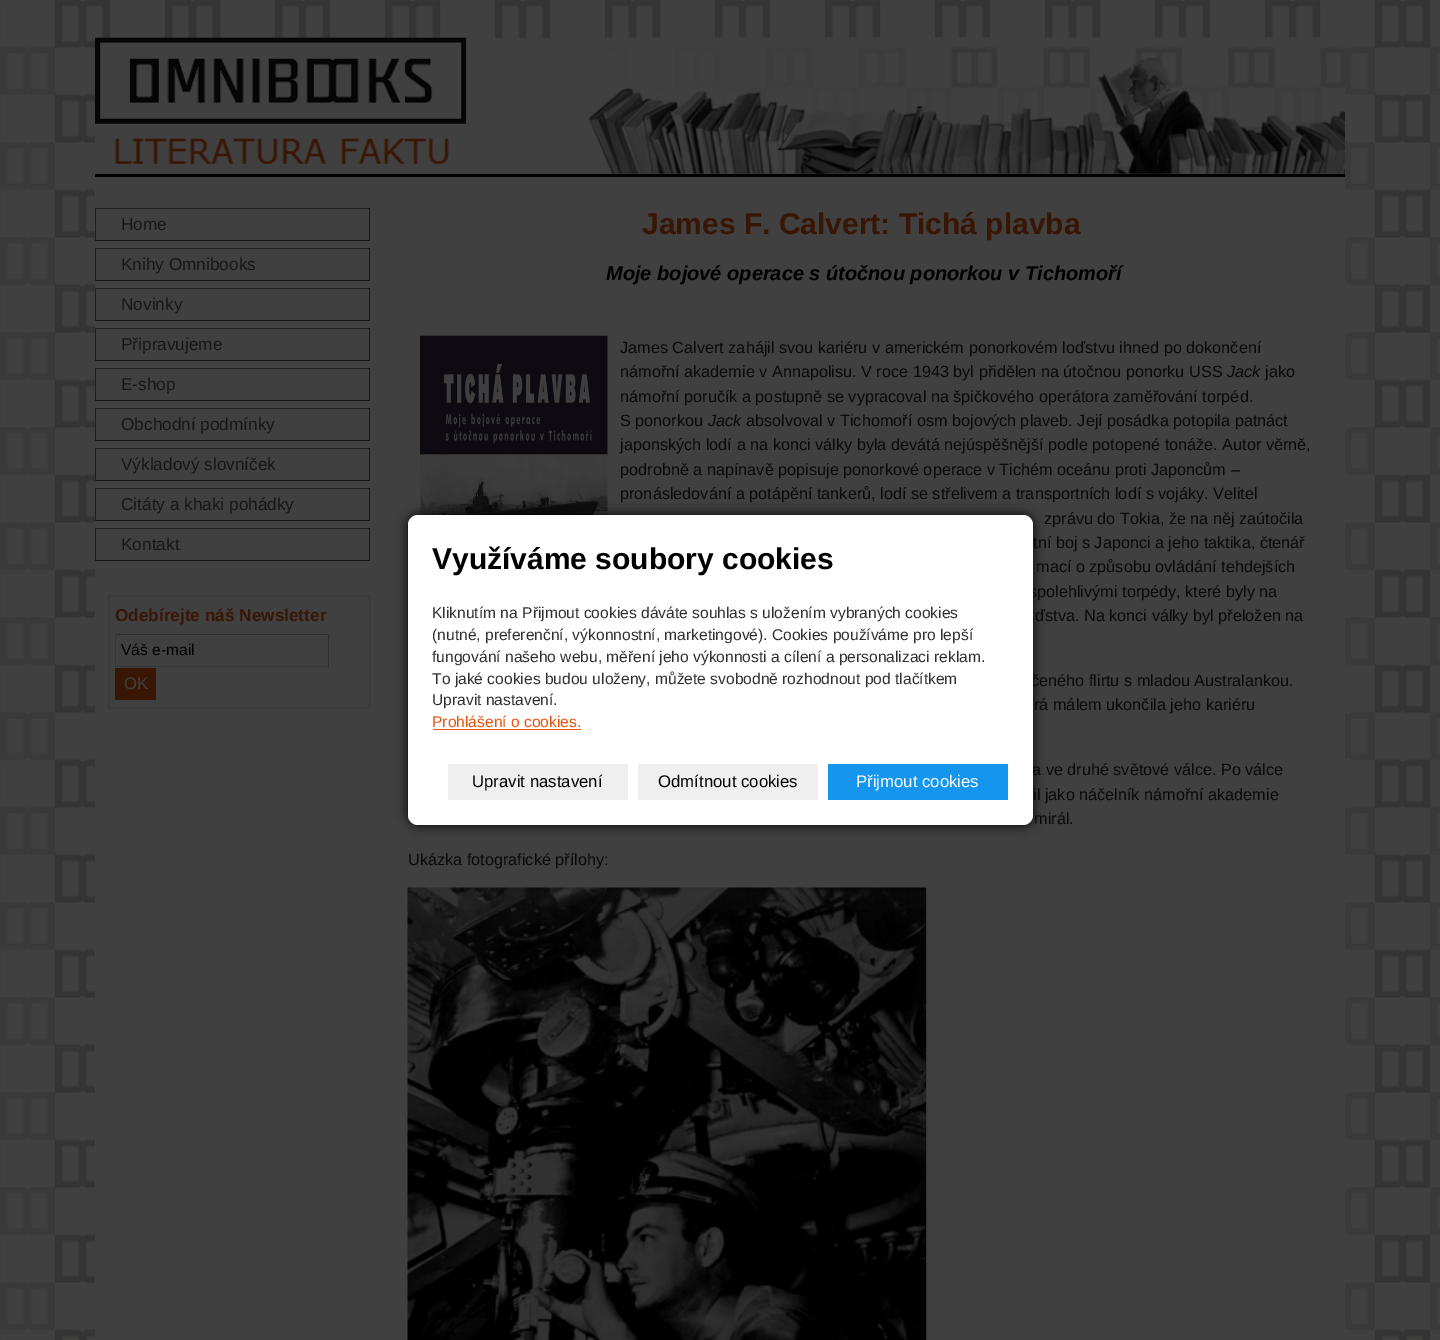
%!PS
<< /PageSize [1440 1340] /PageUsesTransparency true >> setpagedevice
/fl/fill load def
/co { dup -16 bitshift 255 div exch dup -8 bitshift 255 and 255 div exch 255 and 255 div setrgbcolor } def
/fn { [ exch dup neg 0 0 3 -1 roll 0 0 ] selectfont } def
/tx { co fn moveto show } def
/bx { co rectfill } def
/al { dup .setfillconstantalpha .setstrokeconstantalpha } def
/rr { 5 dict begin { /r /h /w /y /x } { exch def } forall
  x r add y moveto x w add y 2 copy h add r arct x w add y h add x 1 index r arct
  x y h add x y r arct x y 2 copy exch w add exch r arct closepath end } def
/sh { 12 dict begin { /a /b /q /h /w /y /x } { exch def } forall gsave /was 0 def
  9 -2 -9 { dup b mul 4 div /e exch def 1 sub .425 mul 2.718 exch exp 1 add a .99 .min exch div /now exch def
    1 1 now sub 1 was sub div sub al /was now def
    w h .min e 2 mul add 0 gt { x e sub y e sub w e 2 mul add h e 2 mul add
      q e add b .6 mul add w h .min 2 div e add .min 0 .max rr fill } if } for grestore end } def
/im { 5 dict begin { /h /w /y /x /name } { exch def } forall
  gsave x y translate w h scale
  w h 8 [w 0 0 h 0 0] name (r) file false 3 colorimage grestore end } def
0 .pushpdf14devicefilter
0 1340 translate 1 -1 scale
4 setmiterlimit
0 0 1440 1340 16#FFFFFF bx
(media/1.raw) 0 0 1440 1340 im
95 38 1250 1302 16#404040 bx
(media/2.raw) 588 37 757 137 im
95 174 1250 3 16#000000 bx
(media/3.raw) 95 37 372 127 im
95 208 275 1 16#1F1F1F bx
369 208 1 33 16#151515 bx
95 240 275 1 16#151515 bx
95 208 1 33 16#1F1F1F bx
95 248 275 1 16#1F1F1F bx
369 248 1 33 16#151515 bx
95 280 275 1 16#151515 bx
95 248 1 33 16#1F1F1F bx
95 288 275 1 16#1F1F1F bx
369 288 1 33 16#151515 bx
95 320 275 1 16#151515 bx
95 288 1 33 16#1F1F1F bx
95 328 275 1 16#1F1F1F bx
369 328 1 33 16#151515 bx
95 360 275 1 16#151515 bx
95 328 1 33 16#1F1F1F bx
95 368 275 1 16#1F1F1F bx
369 368 1 33 16#151515 bx
95 400 275 1 16#151515 bx
95 368 1 33 16#1F1F1F bx
95 408 275 1 16#1F1F1F bx
369 408 1 33 16#151515 bx
95 440 275 1 16#151515 bx
95 408 1 33 16#1F1F1F bx
95 448 275 1 16#1F1F1F bx
369 448 1 33 16#151515 bx
95 480 275 1 16#151515 bx
95 448 1 33 16#1F1F1F bx
95 488 275 1 16#1F1F1F bx
369 488 1 33 16#151515 bx
95 520 275 1 16#151515 bx
95 488 1 33 16#1F1F1F bx
95 528 275 1 16#1F1F1F bx
369 528 1 33 16#151515 bx
95 560 275 1 16#151515 bx
95 528 1 33 16#1F1F1F bx
16#393939 co
108.5 595.5 261 112 rectstroke
115 634 214 1 16#2F2F2F bx
328 634 1 34 16#2F2F2F bx
115 666 214 1 16#373737 bx
115 634 1 34 16#373737 bx
115 668 41 32 16#391503 bx
(media/4.raw) 420 335 188 180 im
(media/5.raw) 407 887 520 453 im
16#000000 co
408 515 625 310 10 6 1 sh
(Home) 121 230 /LiberationSans-Regular 17.2 16#161616 tx
(Knihy Omnibooks) 121 270 /LiberationSans-Regular 17.2 16#161616 tx
(Novinky) 121 310 /LiberationSans-Regular 17.2 16#161616 tx
(Připravujeme) 121 350 /LiberationSans-Regular 17.2 16#161616 tx
(E-shop) 121 390 /LiberationSans-Regular 17.2 16#161616 tx
(Obchodní podmínky) 121 430 /LiberationSans-Regular 17.2 16#161616 tx
(Výkladový slovníček) 121 470 /LiberationSans-Regular 17.2 16#161616 tx
(Citáty a khaki pohádky) 121 510 /LiberationSans-Regular 17.2 16#161616 tx
(Kontakt) 121 550 /LiberationSans-Regular 17.2 16#161616 tx
(Odebírejte náš Newsletter) 115 621 /LiberationSans-Bold 17.2 16#391503 tx
(Váš e-mail) 121 655 /LiberationSans-Regular 15.6 16#000000 tx
(OK) 124 689 /LiberationSans-Regular 16.75 16#404040 tx
(James F. Calvert: Tichá plavba) 642 234 /LiberationSans-Bold 30 16#391503 tx
(Moje bojové operace s útočnou ponorkou v Tichomoří) 606 280 /LiberationSans-BoldItalic 20 16#000000 tx
(James Calvert zahájil svou kariéru v americkém ponorkovém loďstvu ihned po dokončení) 620 353 /LiberationSans-Regular 16.25 16#090909 tx
(námořní akademie v Annapolisu. V roce 1943 byl přidělen na útočnou ponorku USS) 620 377 /LiberationSans-Regular 16.25 16#090909 tx
(Jack) 1227 377 /LiberationSans-Italic 16.25 16#090909 tx
(jako) 1265 377 /LiberationSans-Regular 16.25 16#090909 tx
(námořní poručík a postupně se vypracoval na špičkového operátora zaměřování torpéd.) 620 402 /LiberationSans-Regular 16.25 16#090909 tx
(S ponorkou) 620 426 /LiberationSans-Regular 16.25 16#090909 tx
(Jack) 708 426 /LiberationSans-Italic 16.25 16#090909 tx
(absolvoval v Tichomoří osm bojových plaveb. Její posádka potopila patnáct) 746 426 /LiberationSans-Regular 16.25 16#090909 tx
(japonských lodí a na konci války byla devátá nejúspěšnější podle potopené tonáže. Autor věrně,) 620 450 /LiberationSans-Regular 16.25 16#090909 tx
(podrobně a napínavě popisuje ponorkové operace v Tichém oceánu proti Japoncům –) 620 475 /LiberationSans-Regular 16.25 16#090909 tx
(pronásledování a potápění tankerů, lodí se střelivem a transportních lodí s vojáky. Velitel) 620 499 /LiberationSans-Regular 16.25 16#090909 tx
(zprávu do Tokia, že na něj zaútočila) 1044 524 /LiberationSans-Regular 16.25 16#090909 tx
(tní boj s Japonci a jeho taktika, čtenář) 1033 548 /LiberationSans-Regular 16.25 16#090909 tx
(mací o způsobu ovládání tehdejších) 1036 572 /LiberationSans-Regular 16.25 16#090909 tx
(spolehlivými torpédy, které byly na) 1029 597 /LiberationSans-Regular 16.25 16#090909 tx
(ďstva. Na konci války byl přeložen na) 1035 621 /LiberationSans-Regular 16.25 16#090909 tx
(čeného flirtu s mladou Australankou.) 1031 686 /LiberationSans-Regular 16.25 16#090909 tx
(rá málem ukončila jeho kariéru) 1034 710 /LiberationSans-Regular 16.25 16#090909 tx
(a ve druhé světové válce. Po válce) 1032 775 /LiberationSans-Regular 16.25 16#090909 tx
(il jako náčelník námořní akademie) 1033 800 /LiberationSans-Regular 16.25 16#090909 tx
(mirál.) 1034 824 /LiberationSans-Regular 16.25 16#090909 tx
(Ukázka fotografické přílohy:) 408 865 /LiberationSans-Regular 16.25 16#090909 tx
16#FFFFFF co
408 515 625 310 10 rr fl
(Využíváme soubory cookies) 432 569 /LiberationSans-Bold 30 16#000000 tx
(Kliknutím na Přijmout cookies dáváte souhlas s uložením vybraných cookies) 432 618 /LiberationSans-Regular 15.6 16#303030 tx
(\(nutné, preferenční, výkonnostní, marketingové\). Cookies používáme pro lepší) 432 640 /LiberationSans-Regular 15.6 16#303030 tx
(fungování našeho webu, měření jeho výkonnosti a cílení a personalizaci reklam.) 432 662 /LiberationSans-Regular 15.6 16#303030 tx
(To jaké cookies budou uloženy, můžete svobodně rozhodnout pod tlačítkem) 432 684 /LiberationSans-Regular 15.6 16#303030 tx
(Upravit nastavení.) 432 705 /LiberationSans-Regular 15.6 16#303030 tx
(Prohlášení o cookies.) 432 727 /LiberationSans-Regular 15.6 16#E5550D tx
433 729 148 1 16#E5550D bx
448 764 180 36 16#EFEFEF bx
(Upravit nastavení) 472 787 /LiberationSans-Regular 16.75 16#000000 tx
638 764 180 36 16#EFEFEF bx
(Odmítnout cookies) 658 787 /LiberationSans-Regular 16.75 16#000000 tx
828 764 180 36 16#1496EE bx
(Přijmout cookies) 856 787 /LiberationSans-Regular 16.75 16#FFFFFF tx
.poppdf14devicefilter showpage
